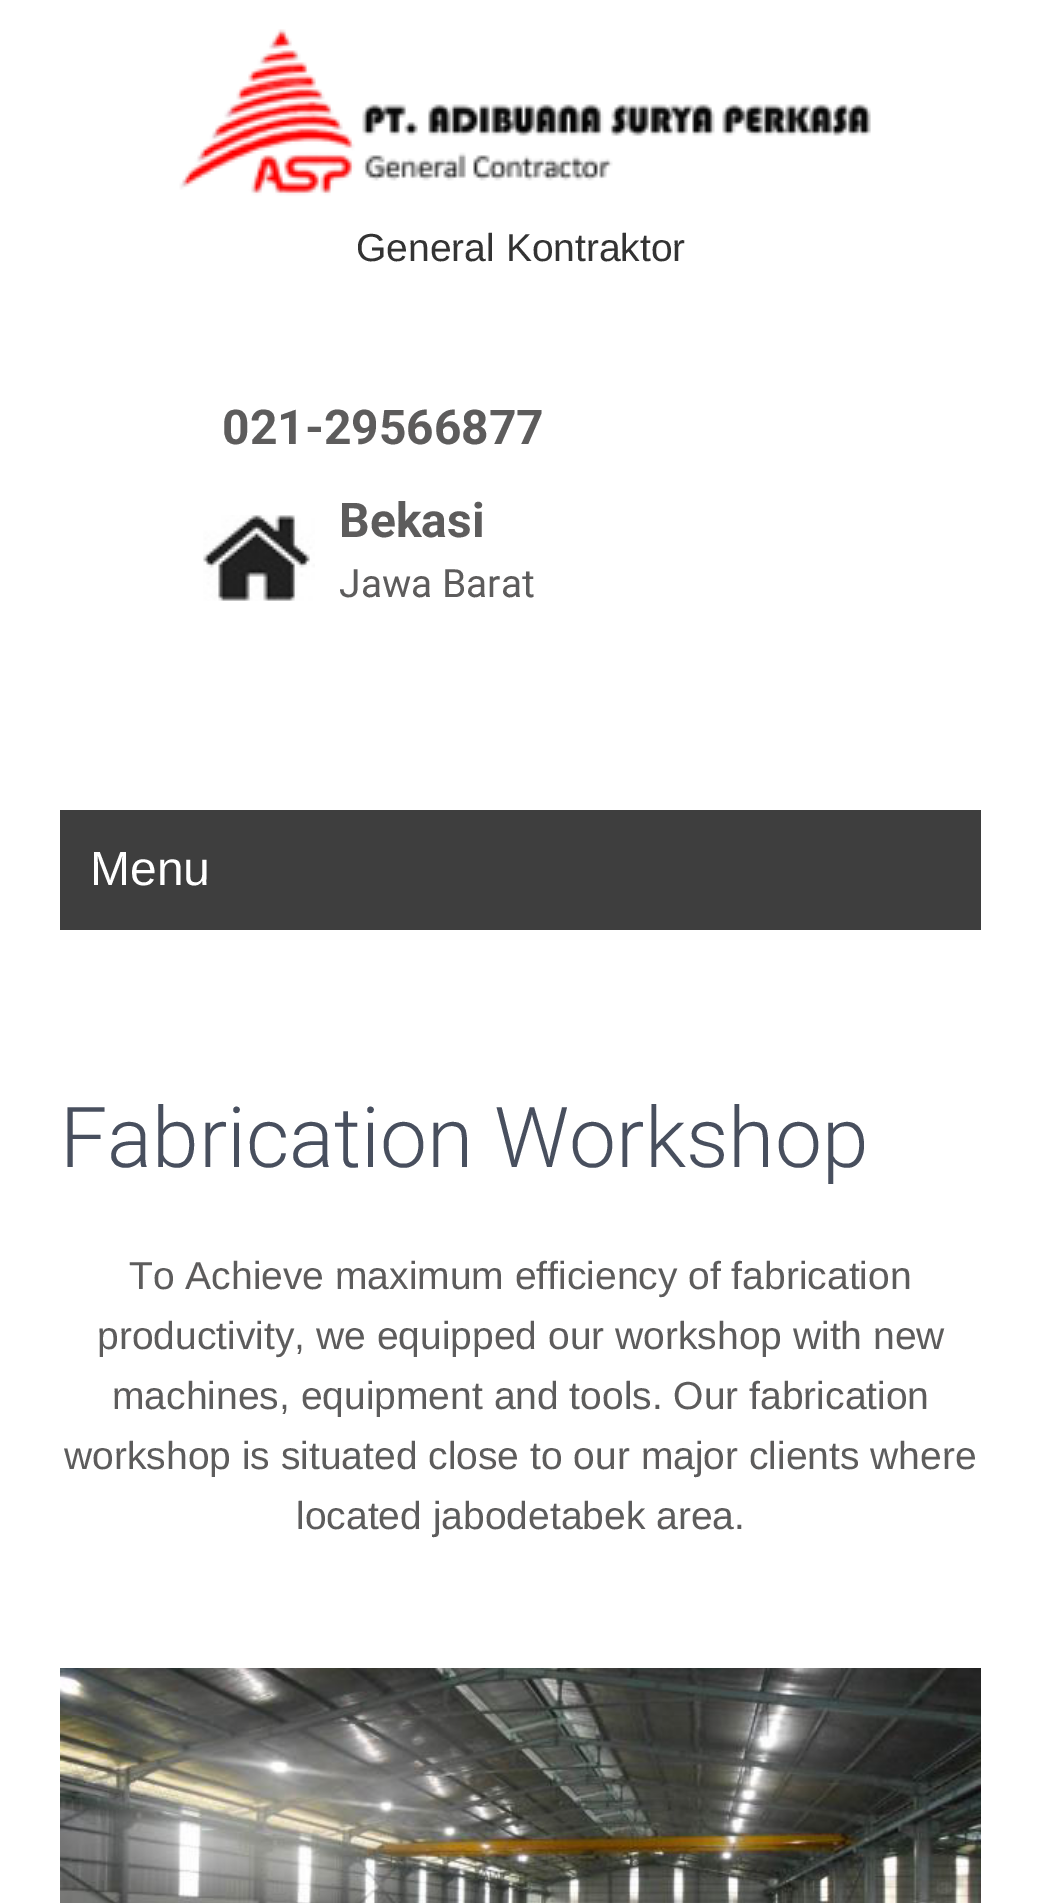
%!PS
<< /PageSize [1039 1903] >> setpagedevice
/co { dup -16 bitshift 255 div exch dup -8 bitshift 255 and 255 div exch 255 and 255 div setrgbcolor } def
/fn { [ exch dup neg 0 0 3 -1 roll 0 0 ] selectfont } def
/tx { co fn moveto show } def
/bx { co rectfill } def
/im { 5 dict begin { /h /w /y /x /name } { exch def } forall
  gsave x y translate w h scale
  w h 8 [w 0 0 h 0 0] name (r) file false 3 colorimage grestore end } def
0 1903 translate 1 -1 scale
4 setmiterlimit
0 0 1039 1903 16#FFFFFF bx
(media/1.raw) 179 29 692 167 im
(media/2.raw) 203 515 112 86 im
60 810 921 120 16#3E3E3E bx
(media/3.raw) 60 1668 921 235 im
(General Kontraktor) 356 261 /Arimo-Regular 39 16#333333 tx
(021-29566877) 222 444 /Roboto-Bold 48 16#5D5C5C tx
(Bekasi) 339 537 /Roboto-Bold 48 16#5D5C5C tx
(Jawa Barat) 339 597 /Roboto-Regular 39 16#5D5C5C tx
(Menu) 90 885 /Arimo-Regular 48 16#FFFFFF tx
(Fabrication Workshop) 60 1167 /Roboto-Light 84 16#484F5E tx
(To Achieve maximum efficiency of fabrication) 129 1289 /Arimo-Regular 39 16#5D5C5C tx
(productivity, we equipped our workshop with new) 97 1349 /Arimo-Regular 39 16#5D5C5C tx
(machines, equipment and tools. Our fabrication) 112 1409 /Arimo-Regular 39 16#5D5C5C tx
(workshop is situated close to our major clients where) 64 1469 /Arimo-Regular 39 16#5D5C5C tx
(located jabodetabek area.) 296 1529 /Arimo-Regular 39 16#5D5C5C tx
showpage
